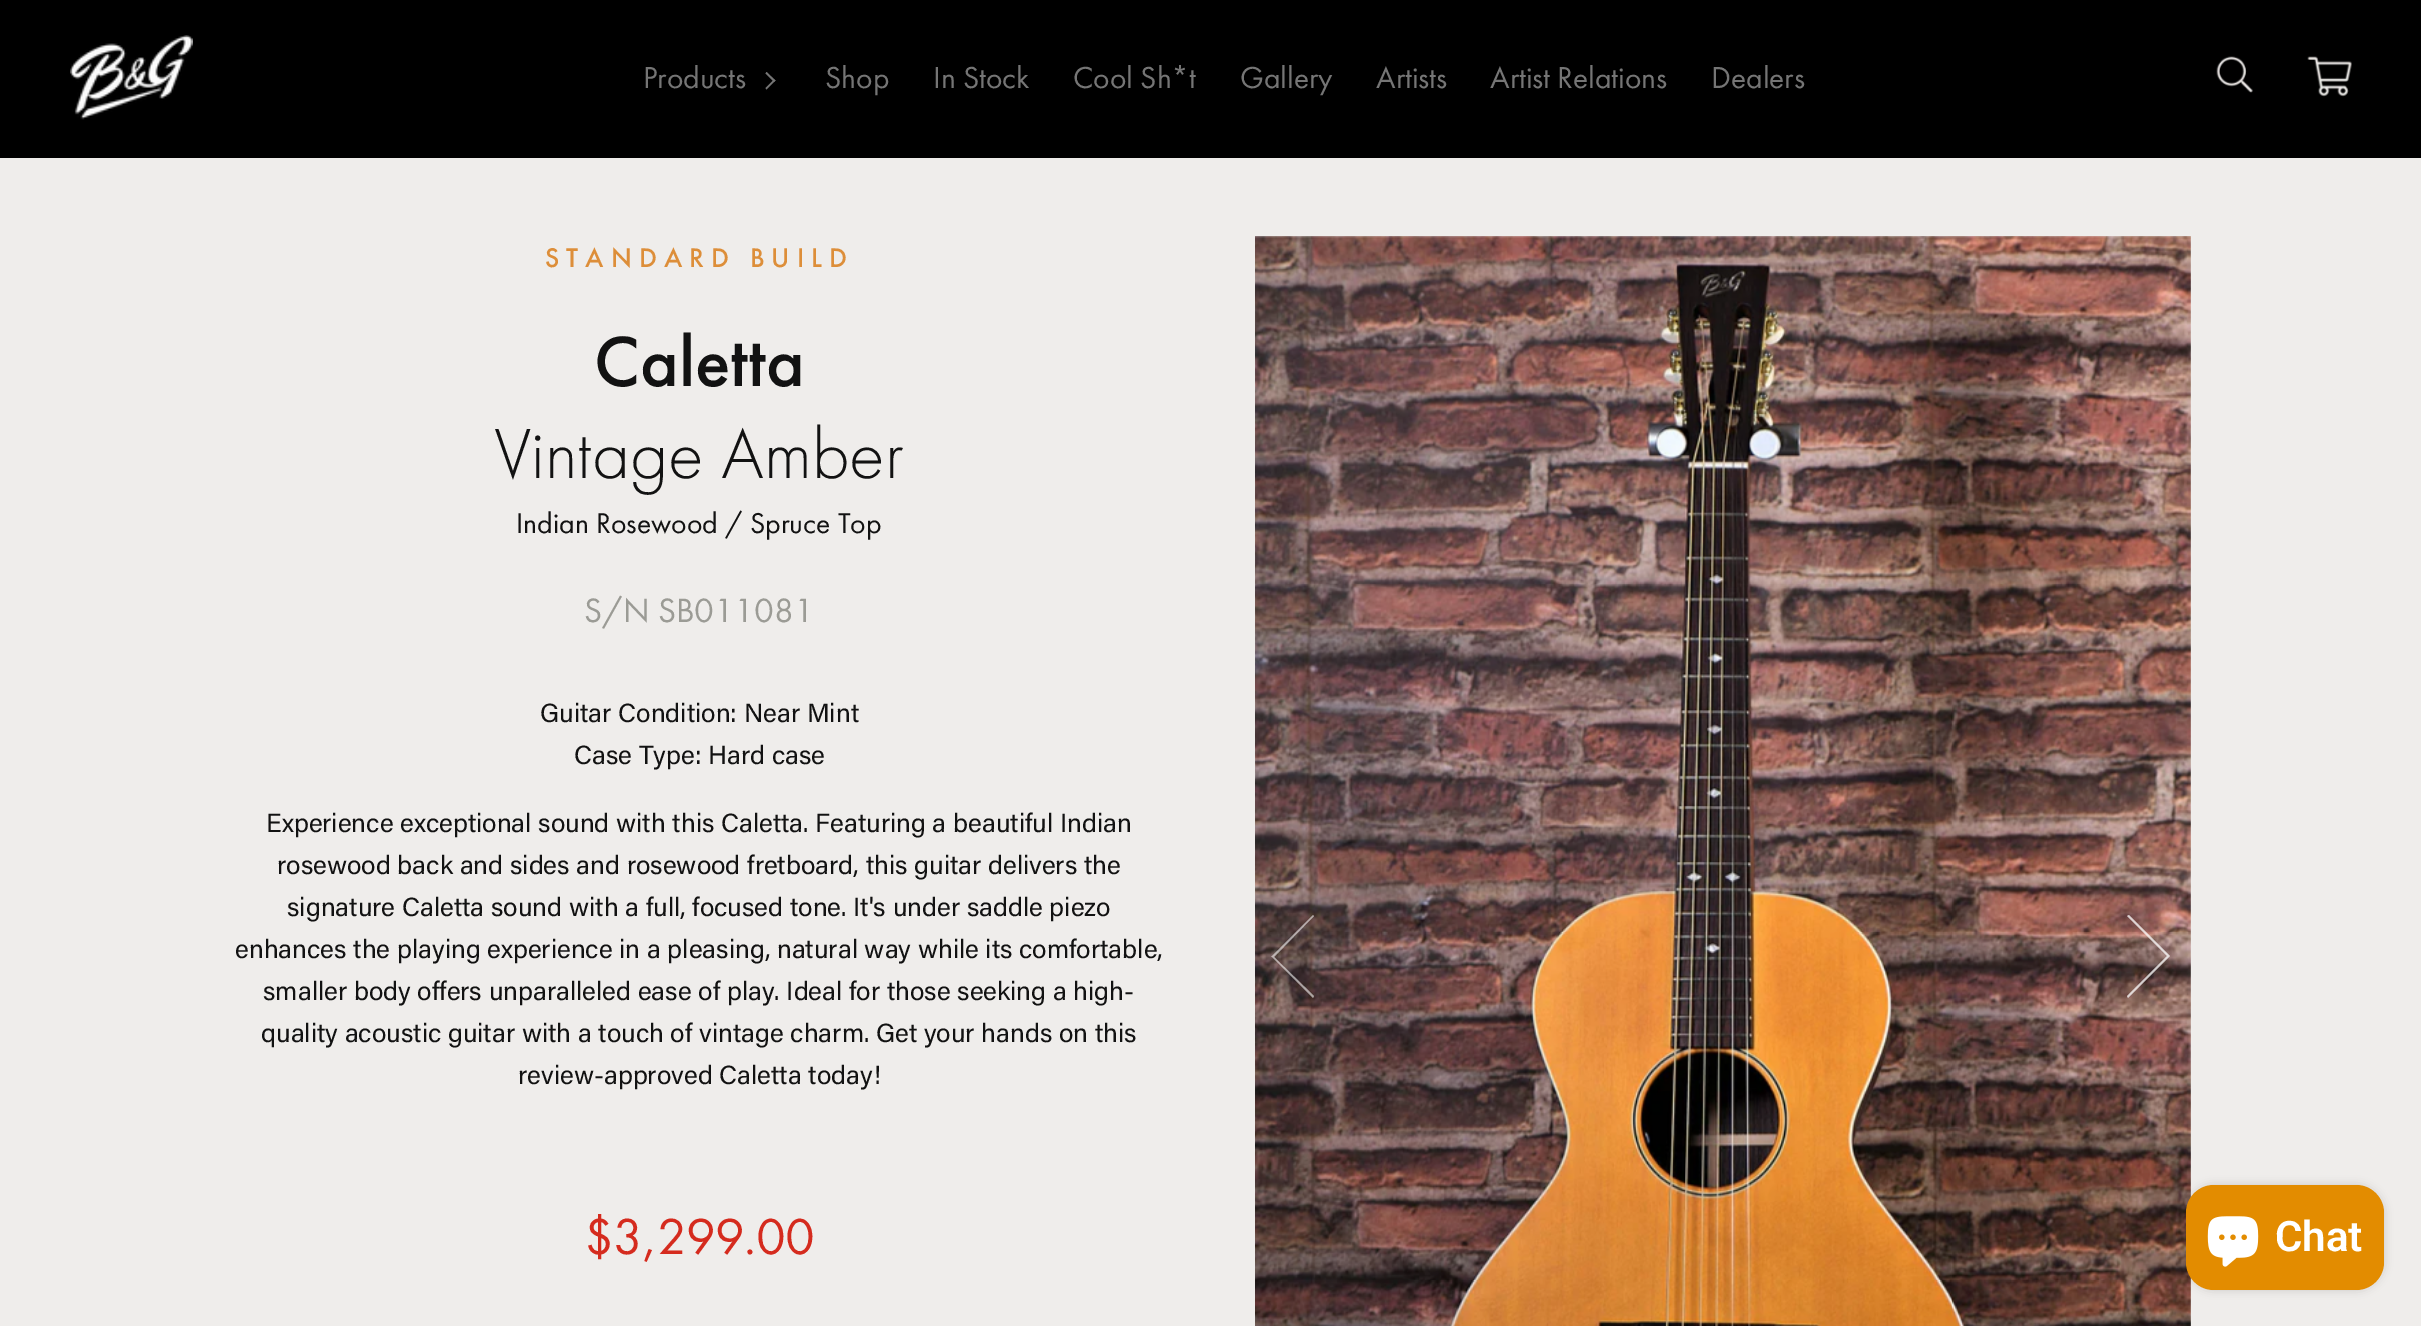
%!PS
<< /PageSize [2421 1326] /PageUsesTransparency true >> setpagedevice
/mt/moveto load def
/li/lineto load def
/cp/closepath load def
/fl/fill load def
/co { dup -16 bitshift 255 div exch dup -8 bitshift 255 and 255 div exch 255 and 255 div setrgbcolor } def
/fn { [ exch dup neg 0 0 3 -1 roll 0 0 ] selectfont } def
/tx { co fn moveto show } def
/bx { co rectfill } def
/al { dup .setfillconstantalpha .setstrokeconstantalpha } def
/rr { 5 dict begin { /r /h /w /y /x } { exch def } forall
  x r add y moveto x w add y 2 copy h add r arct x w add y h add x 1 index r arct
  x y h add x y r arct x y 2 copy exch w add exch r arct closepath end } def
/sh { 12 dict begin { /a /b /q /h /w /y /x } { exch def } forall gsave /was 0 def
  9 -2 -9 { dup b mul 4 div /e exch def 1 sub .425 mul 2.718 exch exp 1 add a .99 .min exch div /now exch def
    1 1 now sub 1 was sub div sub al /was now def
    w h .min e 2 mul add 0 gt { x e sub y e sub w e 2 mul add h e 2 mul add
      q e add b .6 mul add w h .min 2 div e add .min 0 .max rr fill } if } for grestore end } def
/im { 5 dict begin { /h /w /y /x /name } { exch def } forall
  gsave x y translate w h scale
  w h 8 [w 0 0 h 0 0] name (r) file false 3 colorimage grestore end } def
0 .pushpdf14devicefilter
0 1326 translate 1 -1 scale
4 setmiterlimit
0 0 2421 1326 16#000000 bx
(media/1.raw) 70 35 123 85 im
16#757575 co
766.5 72 mt 775.5 80.5 li 774 82 li 765.5 73.5 li cp fl
774 79.5 mt 775.5 80.5 li 766.5 89.5 li 765.5 88 li cp fl
(media/2.raw) 2216 56 37 37 im
(media/3.raw) 2307 56 45 41 im
0 158 2421 1168 16#EFEDEB bx
(media/4.raw) 1255 236 936 1090 im
0.56 al
16#FFFFFF co
1272 957 mt 1313 998 li 1314 996 li 1274 957 li 1314 916 li 1313 915 li 1271 957 li cp fl
0.75 al
2169 955 mt 2129 915 li 2127 916 li 2167 956 li 2127 996 li 2128 998 li 2170 956 li cp fl
1 al
16#000000 co
2186 1185 198 105 28 4.5 .15 sh
16#E38C00 co
2186 1185 198 105 28 rr fl
(media/5.raw) 2207 1216 52 51 im
(Products) 643 88 /FuturaPT-Regular 31.5 16#757575 tx
(Shop) 825 88 /FuturaPT-Regular 31.5 16#757575 tx
(In Stock) 933 88 /FuturaPT-Regular 31.5 16#757575 tx
(Cool Sh*t) 1073 88 /FuturaPT-Regular 31.5 16#757575 tx
(Gallery) 1240 88 /FuturaPT-Regular 31.5 16#757575 tx
(Artists) 1376 88 /FuturaPT-Regular 31.5 16#757575 tx
(Artist Relations) 1490 88 /FuturaPT-Regular 31.5 16#757575 tx
(Dealers) 1711 88 /FuturaPT-Regular 31.5 16#757575 tx
/FuturaPT-Medium 28 fn
16#DD8E39 co
545 267 mt 7 0 (STANDARD BUILD) ashow
(Caletta) 594 386 /FuturaPT-Medium 73.5 16#121212 tx
(Vintage Amber) 494 478 /FuturaPT-Light 73.5 16#121212 tx
(Indian Rosewood / Spruce Top) 516 533 /FuturaPT-Regular 29.75 16#121212 tx
(S/N SB011081) 584 622 /FuturaPT-Regular 35 16#9B9B95 tx
(Guitar Condition: Near Mint) 540 722 /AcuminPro-Regular 26.25 16#121212 tx
(Case Type: Hard case) 574 764 /AcuminPro-Regular 26.25 16#121212 tx
(Experience exceptional sound with this Caletta. Featuring a beautiful Indian) 266 832 /AcuminPro-Regular 26.25 16#121212 tx
(rosewood back and sides and rosewood fretboard, this guitar delivers the) 277 874 /AcuminPro-Regular 26.25 16#121212 tx
(signature Caletta sound with a full, focused tone. It's under saddle piezo) 287 916 /AcuminPro-Regular 26.25 16#121212 tx
(enhances the playing experience in a pleasing, natural way while its comfortable,) 235 958 /AcuminPro-Regular 26.25 16#121212 tx
(smaller body offers unparalleled ease of play. Ideal for those seeking a high-) 263 1000 /AcuminPro-Regular 26.25 16#121212 tx
(quality acoustic guitar with a touch of vintage charm. Get your hands on this) 261 1042 /AcuminPro-Regular 26.25 16#121212 tx
(review-approved Caletta today!) 518 1084 /AcuminPro-Regular 26.25 16#121212 tx
/FuturaPT-Regular 52.5 fn
16#D52B1E co
584 1254 mt -.5 0 ($3,299.00) ashow
(Chat) 2275 1251 /Roboto-SemiBold 42 16#FFFFFF tx
.poppdf14devicefilter showpage
